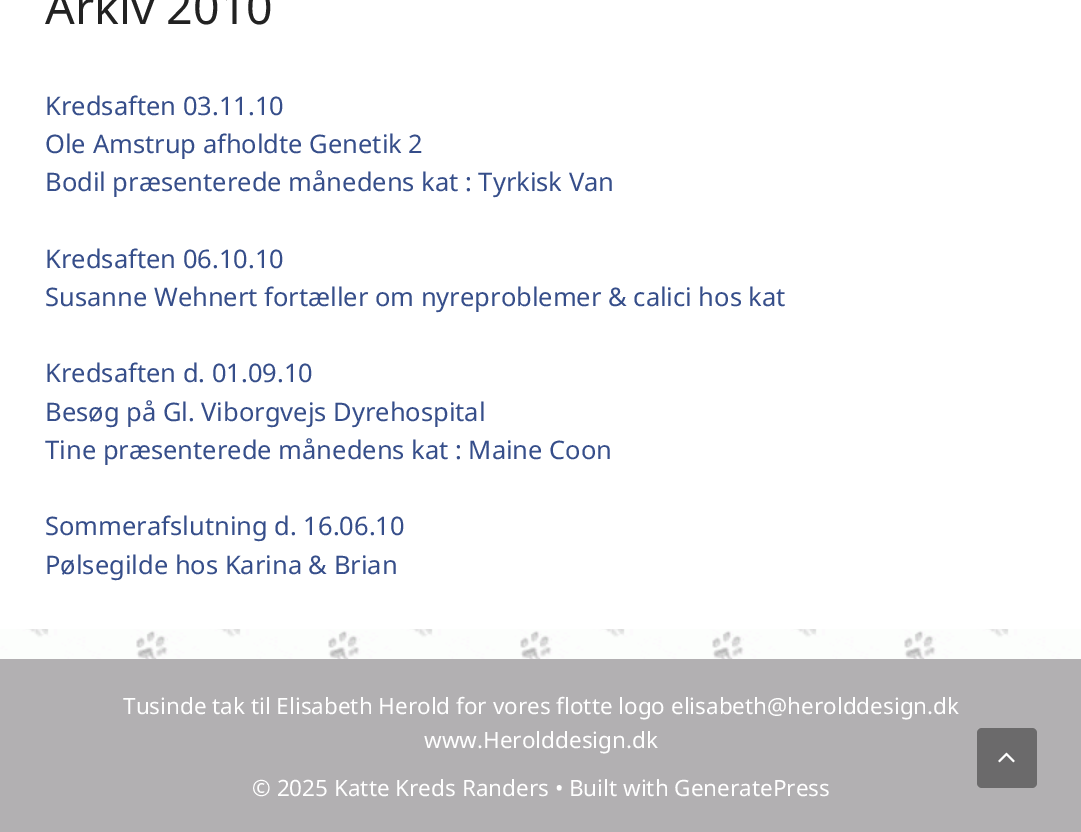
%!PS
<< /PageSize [1081 832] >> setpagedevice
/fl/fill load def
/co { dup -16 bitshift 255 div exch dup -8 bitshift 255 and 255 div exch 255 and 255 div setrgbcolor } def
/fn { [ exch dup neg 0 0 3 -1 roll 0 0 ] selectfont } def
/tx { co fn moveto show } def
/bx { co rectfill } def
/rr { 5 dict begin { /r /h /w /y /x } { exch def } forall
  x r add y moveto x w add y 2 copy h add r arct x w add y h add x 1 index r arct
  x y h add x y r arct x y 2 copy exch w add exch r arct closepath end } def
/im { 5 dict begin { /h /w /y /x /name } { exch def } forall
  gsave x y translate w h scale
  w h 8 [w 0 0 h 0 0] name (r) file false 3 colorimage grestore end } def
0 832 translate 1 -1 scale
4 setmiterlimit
0 0 1081 832 16#FFFFFF bx
(media/1.raw) 0 629 1081 30 im
0 659 1081 173 16#B2B0B2 bx
16#6B6A6B co
977 728 60 60 5 rr fl
(media/2.raw) 998 752 17 11 im
(Arkiv 2010) 45 24 /NotoSans-Regular 46.5 16#222222 tx
(Kredsaften 03.11.10) 45 115 /NotoSans-Regular 25.5 16#364E8A tx
(Ole Amstrup afholdte Genetik 2) 45 153 /NotoSans-Regular 25.5 16#364E8A tx
(Bodil præsenterede månedens kat : Tyrkisk Van) 45 191 /NotoSans-Regular 25.5 16#364E8A tx
(Kredsaften 06.10.10) 45 268 /NotoSans-Regular 25.5 16#364E8A tx
(Susanne Wehnert fortæller om nyreproblemer & calici hos kat) 45 306 /NotoSans-Regular 25.5 16#364E8A tx
(Kredsaften d. 01.09.10) 45 382 /NotoSans-Regular 25.5 16#364E8A tx
(Besøg på Gl. Viborgvejs Dyrehospital) 45 421 /NotoSans-Regular 25.5 16#364E8A tx
(Tine præsenterede månedens kat : Maine Coon) 45 459 /NotoSans-Regular 25.5 16#364E8A tx
(Sommerafslutning d. 16.06.10) 45 535 /NotoSans-Regular 25.5 16#364E8A tx
(Pølsegilde hos Karina & Brian) 45 574 /NotoSans-Regular 25.5 16#364E8A tx
(Tusinde tak til Elisabeth Herold for vores flotte logo elisabeth@herolddesign.dk) 123 714 /NotoSans-Regular 22.5 16#FFFFFF tx
(www.Herolddesign.dk) 424 748 /NotoSans-Regular 22.5 16#FFFFFF tx
(© 2025 Katte Kreds Randers • Built with GeneratePress) 252 796 /NotoSans-Regular 22.5 16#FFFFFF tx
showpage
